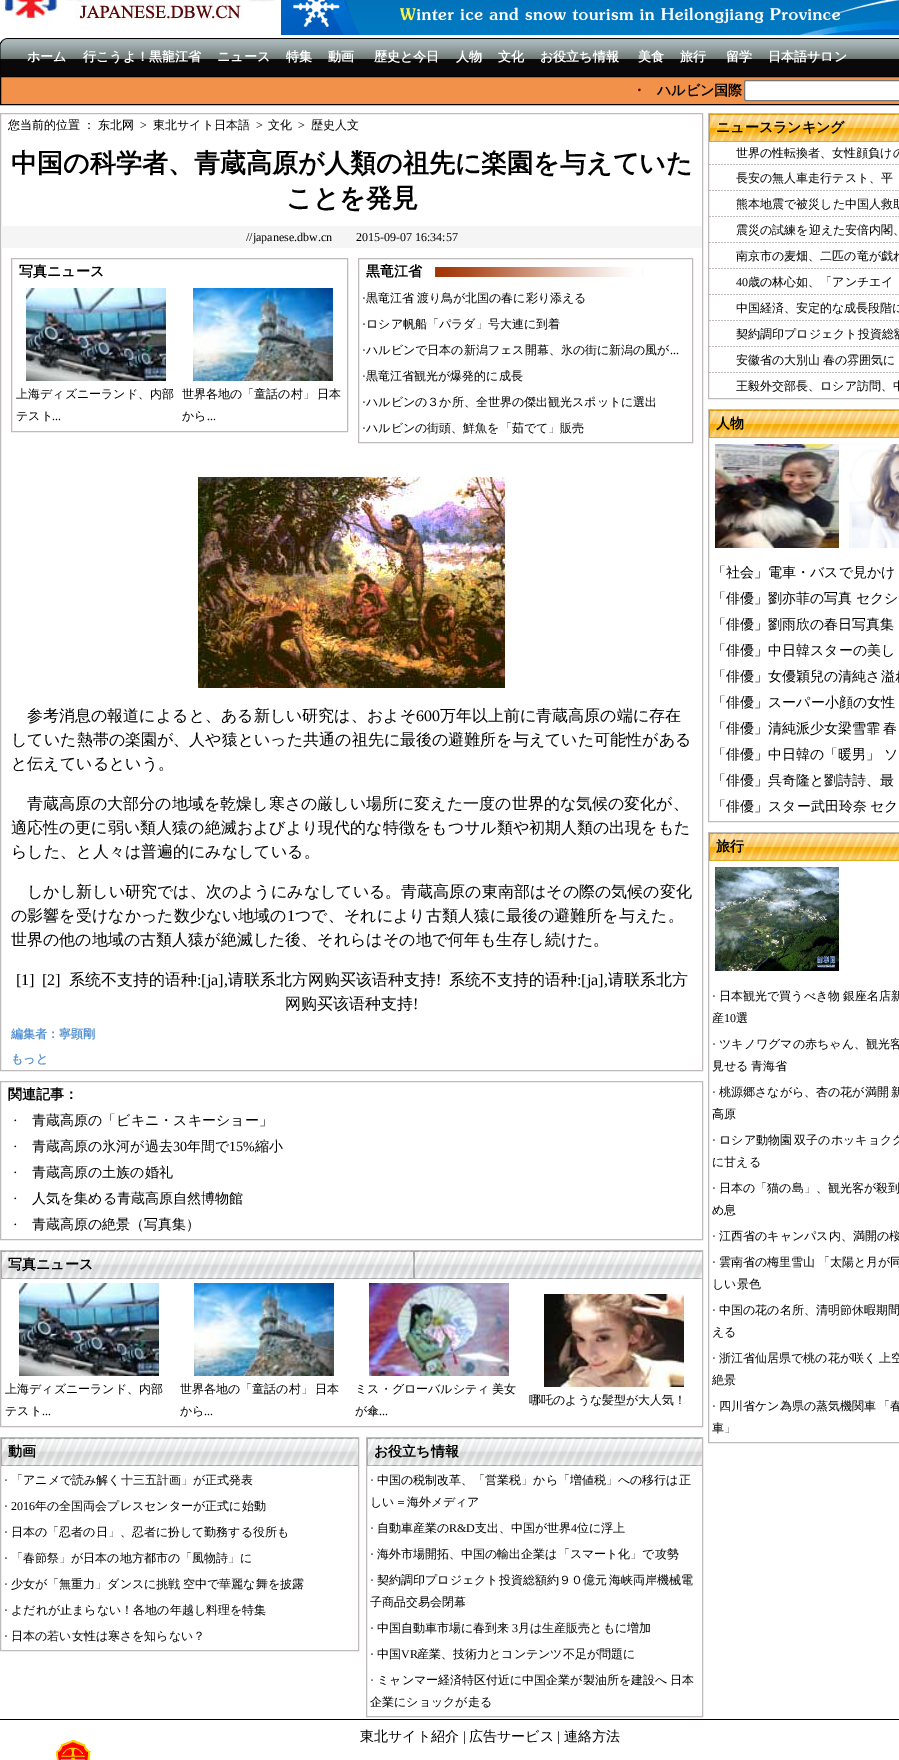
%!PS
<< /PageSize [899 1760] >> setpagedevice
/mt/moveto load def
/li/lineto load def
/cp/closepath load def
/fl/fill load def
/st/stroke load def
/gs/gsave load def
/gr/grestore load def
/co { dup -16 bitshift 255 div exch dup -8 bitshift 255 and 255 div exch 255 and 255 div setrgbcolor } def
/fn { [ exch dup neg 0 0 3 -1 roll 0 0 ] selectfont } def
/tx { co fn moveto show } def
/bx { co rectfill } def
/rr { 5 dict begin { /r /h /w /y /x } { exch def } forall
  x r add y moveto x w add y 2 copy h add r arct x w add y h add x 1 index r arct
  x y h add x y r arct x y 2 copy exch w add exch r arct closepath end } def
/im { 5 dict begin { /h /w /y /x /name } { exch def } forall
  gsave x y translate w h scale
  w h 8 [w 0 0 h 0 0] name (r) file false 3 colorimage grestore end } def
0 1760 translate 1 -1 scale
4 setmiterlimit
0 0 899 1760 16#FFFFFF bx
(media/1.raw) 3 0 272 20 im
(media/2.raw) 281 0 618 35 im
(media/3.raw) 0 38 7 38 im
(media/4.raw) 7 38 892 38 im
16#F29149 co
.5 76.5 mt 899.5 76.5 li 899.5 104.5 li .5 104.5 li cp gs fl gr
16#000000 co
st
16#FFFFFF co
744.5 80.5 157 20 1.5 rr gs fl gr
16#767676 co
st
16#C0BBBB co
.5 113.5 702 957 rectstroke
1 226 701 22 16#F5F5F5 bx
16#C0BBBB co
11.5 258.5 336 173 rectstroke
(media/5.raw) 26 288 140 93 im
(media/6.raw) 193 288 140 93 im
358.5 258.5 334 184 rectstroke
(media/7.raw) 435 267 208 10 im
(media/8.raw) 198 477 307 211 im
.5 1081.5 702 158 rectstroke
.5 1250.5 702 176 rectstroke
(media/9.raw) 1 1251 701 28 im
(media/10.raw) 19 1283 140 93 im
(media/11.raw) 194 1283 140 93 im
(media/12.raw) 369 1283 140 93 im
(media/13.raw) 544 1294 140 93 im
.5 1437.5 358 213 rectstroke
(media/14.raw) 1 1438 357 28 im
366.5 1437.5 336 279 rectstroke
(media/15.raw) 367 1438 335 28 im
708.5 113.5 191 285 rectstroke
(media/16.raw) 709 114 190 28 im
(media/17.raw) 709 164 190 1 im
(media/17.raw) 709 190 190 1 im
(media/17.raw) 709 216 190 1 im
(media/17.raw) 709 242 190 1 im
(media/17.raw) 709 268 190 1 im
(media/17.raw) 709 294 190 1 im
(media/17.raw) 709 320 190 1 im
(media/17.raw) 709 346 190 1 im
(media/17.raw) 709 372 190 1 im
708.5 409.5 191 412 rectstroke
(media/16.raw) 709 410 190 28 im
(media/18.raw) 715 444 124 104 im
(media/19.raw) 849 444 50 104 im
708.5 832.5 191 610 rectstroke
(media/16.raw) 709 833 190 28 im
(media/20.raw) 715 867 124 104 im
0 1719 899 1 16#000000 bx
(media/21.raw) 56 1740 35 20 im
(ホーム) 27 61 /WenQuanYiZenHei-Bold 13 16#FFFFFF tx
(行こうよ！黒龍江省) 83 61 /WenQuanYiZenHei-Bold 13 16#FFFFFF tx
(ニュース) 217 61 /WenQuanYiZenHei-Bold 13 16#FFFFFF tx
(特集) 286 61 /WenQuanYiZenHei-Bold 13 16#FFFFFF tx
(動画) 328 61 /WenQuanYiZenHei-Bold 13 16#FFFFFF tx
(歴史と今日) 374 61 /WenQuanYiZenHei-Bold 13 16#FFFFFF tx
(人物) 456 61 /WenQuanYiZenHei-Bold 13 16#FFFFFF tx
(文化) 498 61 /WenQuanYiZenHei-Bold 13 16#FFFFFF tx
(お役立ち情報) 540 61 /WenQuanYiZenHei-Bold 13 16#FFFFFF tx
(美食) 638 61 /WenQuanYiZenHei-Bold 13 16#FFFFFF tx
(旅行) 680 61 /WenQuanYiZenHei-Bold 13 16#FFFFFF tx
(留学) 726 61 /WenQuanYiZenHei-Bold 13 16#FFFFFF tx
(日本語サロン) 768 61 /WenQuanYiZenHei-Bold 13 16#FFFFFF tx
(・) 632 95 /WenQuanYiZenHei-Bold 14 16#600202 tx
(ハルビン国際) 657 95 /WenQuanYiZenHei-Bold 14 16#000000 tx
/WenQuanYiZenHei-Medium 12 fn
8 129 mt -1 0 32 (您当前的位置 ：) widthshow
(东北网) 98 129 /WenQuanYiZenHei-Medium 12 16#000000 tx
(>) 140 129 /LiberationSerif-Regular 12 16#000000 tx
(東北サイト日本語) 153 129 /WenQuanYiZenHei-Medium 12 16#000000 tx
(>) 256 129 /LiberationSerif-Regular 12 16#000000 tx
(文化) 268 129 /WenQuanYiZenHei-Medium 12 16#000000 tx
(>) 298 129 /LiberationSerif-Regular 12 16#000000 tx
(歴史人文) 311 129 /WenQuanYiZenHei-Medium 12 16#000000 tx
(中国の科学者、青蔵高原が人類の祖先に楽園を与えていた) 11 172 /WenQuanYiZenHei-Bold 26 16#000000 tx
(ことを発見) 286 207 /WenQuanYiZenHei-Bold 26 16#000000 tx
(//japanese.dbw.cn) 246 241 /LiberationSerif-Regular 12 16#000000 tx
(2015-09-07 16:34:57) 356 241 /LiberationSerif-Regular 12 16#000000 tx
(写真ニュース) 19 276 /WenQuanYiZenHei-Bold 14 16#000000 tx
(上海ディズニーランド、内部) 16 398 /WenQuanYiZenHei-Medium 12 16#000000 tx
(テスト) 16 420 /WenQuanYiZenHei-Medium 12 16#000000 tx
(...) 52 420 /LiberationSerif-Regular 12 16#000000 tx
/WenQuanYiZenHei-Medium 12 fn
182 398 mt -1 0 32 (世界各地の「童話の村」 日本) widthshow
(から) 182 420 /WenQuanYiZenHei-Medium 12 16#000000 tx
(...) 207 420 /LiberationSerif-Regular 12 16#000000 tx
(黒竜江省) 366 276 /WenQuanYiZenHei-Bold 14 16#000000 tx
(·) 362 302 /LiberationSerif-Regular 12 16#000000 tx
/WenQuanYiZenHei-Medium 12 fn
366 302 mt -1 0 32 (黒竜江省 渡り鳥が北国の春に彩り添える) widthshow
(·) 362 328 /LiberationSerif-Regular 12 16#000000 tx
(ロシア帆船「パラダ」号大連に到着) 366 328 /WenQuanYiZenHei-Medium 12 16#000000 tx
(·) 362 354 /LiberationSerif-Regular 12 16#000000 tx
(ハルビンで日本の新潟フェス開幕、氷の街に新潟の風が) 366 354 /WenQuanYiZenHei-Medium 12 16#000000 tx
(...) 670 354 /LiberationSerif-Regular 12 16#000000 tx
(·) 362 380 /LiberationSerif-Regular 12 16#000000 tx
(黒竜江省観光が爆発的に成長) 366 380 /WenQuanYiZenHei-Medium 12 16#000000 tx
(·) 362 406 /LiberationSerif-Regular 12 16#000000 tx
(ハルビンの３か所、全世界の傑出観光スポットに選出) 366 406 /WenQuanYiZenHei-Medium 12 16#000000 tx
(·) 362 432 /LiberationSerif-Regular 12 16#000000 tx
(ハルビンの街頭、鮮魚を「茹でて」販売) 366 432 /WenQuanYiZenHei-Medium 12 16#000000 tx
(参考消息の報道によると、ある新しい研究は、およそ) 27 721 /WenQuanYiZenHei-Medium 16 16#000000 tx
(600) 416 721 /LiberationSerif-Regular 16 16#000000 tx
(万年以上前に青蔵高原の端に存在) 440 721 /WenQuanYiZenHei-Medium 16 16#000000 tx
(していた熱帯の楽園が、人や猿といった共通の祖先に最後の避難所を与えていた可能性がある) 11 745 /WenQuanYiZenHei-Medium 16 16#000000 tx
(と伝えているという。) 11 769 /WenQuanYiZenHei-Medium 16 16#000000 tx
(青蔵高原の大部分の地域を乾燥し寒さの厳しい場所に変えた一度の世界的な気候の変化が、) 27 809 /WenQuanYiZenHei-Medium 16 16#000000 tx
(適応性の更に弱い類人猿の絶滅およびより現代的な特徴をもつサル類や初期人類の出現をもた) 11 833 /WenQuanYiZenHei-Medium 16 16#000000 tx
(らした、と人々は普遍的にみなしている。) 11 857 /WenQuanYiZenHei-Medium 16 16#000000 tx
(しかし新しい研究では、次のようにみなしている。青蔵高原の東南部はその際の気候の変化) 27 897 /WenQuanYiZenHei-Medium 16 16#000000 tx
(の影響を受けなかった数少ない地域の) 11 921 /WenQuanYiZenHei-Medium 16 16#000000 tx
(1) 287 921 /LiberationSerif-Regular 16 16#000000 tx
(つで、それにより古類人猿に最後の避難所を与えた。) 295 921 /WenQuanYiZenHei-Medium 16 16#000000 tx
(世界の他の地域の古類人猿が絶滅した後、それらはその地で何年も生存し続けた。) 11 945 /WenQuanYiZenHei-Medium 16 16#000000 tx
([1]) 16 985 /LiberationSerif-Regular 16 16#000000 tx
([2]) 42 985 /LiberationSerif-Regular 16 16#000000 tx
(系统不支持的语种) 69 985 /WenQuanYiZenHei-Medium 16 16#000000 tx
(:[ja],) 197 985 /LiberationSerif-Regular 16 16#000000 tx
(请联系北方网购买该语种支持) 228 985 /WenQuanYiZenHei-Medium 16 16#000000 tx
(!) 436 985 /LiberationSerif-Regular 16 16#000000 tx
(系统不支持的语种) 449 985 /WenQuanYiZenHei-Medium 16 16#000000 tx
(:[ja],) 577 985 /LiberationSerif-Regular 16 16#000000 tx
(请联系北方) 608 985 /WenQuanYiZenHei-Medium 16 16#000000 tx
(网购买该语种支持) 285 1009 /WenQuanYiZenHei-Medium 16 16#000000 tx
(!) 413 1009 /LiberationSerif-Regular 16 16#000000 tx
(編集者：寧顕剛) 11 1038 /WenQuanYiZenHei-Bold 12 16#5691D1 tx
(もっと) 11 1063 /WenQuanYiZenHei-Bold 12 16#5691D1 tx
(関連記事：) 8 1099 /WenQuanYiZenHei-Bold 14 16#000000 tx
(·) 13 1125 /LiberationSerif-Regular 14 16#000000 tx
(青蔵高原の「ビキニ・スキーショー」) 32 1125 /WenQuanYiZenHei-Medium 14 16#000000 tx
(·) 13 1151 /LiberationSerif-Regular 14 16#000000 tx
(青蔵高原の氷河が過去) 32 1151 /WenQuanYiZenHei-Medium 14 16#000000 tx
(30) 173 1151 /LiberationSerif-Regular 14 16#000000 tx
(年間で) 187 1151 /WenQuanYiZenHei-Medium 14 16#000000 tx
(15%) 229 1151 /LiberationSerif-Regular 14 16#000000 tx
(縮小) 255 1151 /WenQuanYiZenHei-Medium 14 16#000000 tx
(·) 13 1177 /LiberationSerif-Regular 14 16#000000 tx
(青蔵高原の土族の婚礼) 32 1177 /WenQuanYiZenHei-Medium 14 16#000000 tx
(·) 13 1203 /LiberationSerif-Regular 14 16#000000 tx
(人気を集める青蔵高原自然博物館) 32 1203 /WenQuanYiZenHei-Medium 14 16#000000 tx
(·) 13 1229 /LiberationSerif-Regular 14 16#000000 tx
(青蔵高原の絶景（写真集）) 32 1229 /WenQuanYiZenHei-Medium 14 16#000000 tx
(写真ニュース) 8 1269 /WenQuanYiZenHei-Bold 14 16#000000 tx
(上海ディズニーランド、内部) 5 1393 /WenQuanYiZenHei-Medium 12 16#000000 tx
(テスト) 5 1415 /WenQuanYiZenHei-Medium 12 16#000000 tx
(...) 42 1415 /LiberationSerif-Regular 12 16#000000 tx
/WenQuanYiZenHei-Medium 12 fn
180 1393 mt -1 0 32 (世界各地の「童話の村」 日本) widthshow
(から) 180 1415 /WenQuanYiZenHei-Medium 12 16#000000 tx
(...) 204 1415 /LiberationSerif-Regular 12 16#000000 tx
/WenQuanYiZenHei-Medium 12 fn
355 1393 mt -1 0 32 (ミス・グローバルシティ 美女) widthshow
(が傘) 355 1415 /WenQuanYiZenHei-Medium 12 16#000000 tx
(...) 379 1415 /LiberationSerif-Regular 12 16#000000 tx
(哪吒のような髪型が大人気！) 529 1404 /WenQuanYiZenHei-Medium 12 16#000000 tx
(動画) 8 1456 /WenQuanYiZenHei-Bold 14 16#000000 tx
(·) 4 1484 /LiberationSerif-Regular 12 16#000000 tx
(「アニメで読み解く十三五計画」が正式発表) 11 1484 /WenQuanYiZenHei-Medium 12 16#000000 tx
(· 2016) 4 1510 /LiberationSerif-Regular 12 16#000000 tx
(年の全国両会プレスセンターが正式に始動) 35 1510 /WenQuanYiZenHei-Medium 12 16#000000 tx
(·) 4 1536 /LiberationSerif-Regular 12 16#000000 tx
(日本の「忍者の日」、忍者に扮して勤務する役所も) 11 1536 /WenQuanYiZenHei-Medium 12 16#000000 tx
(·) 4 1562 /LiberationSerif-Regular 12 16#000000 tx
(「春節祭」が日本の地方都市の「風物詩」に) 11 1562 /WenQuanYiZenHei-Medium 12 16#000000 tx
(·) 4 1588 /LiberationSerif-Regular 12 16#000000 tx
/WenQuanYiZenHei-Medium 12 fn
11 1588 mt -1 0 32 (少女が「無重力」ダンスに挑戦 空中で華麗な舞を披露) widthshow
(·) 4 1614 /LiberationSerif-Regular 12 16#000000 tx
(よだれが止まらない！各地の年越し料理を特集) 11 1614 /WenQuanYiZenHei-Medium 12 16#000000 tx
(·) 4 1640 /LiberationSerif-Regular 12 16#000000 tx
(日本の若い女性は寒さを知らない？) 11 1640 /WenQuanYiZenHei-Medium 12 16#000000 tx
(お役立ち情報) 374 1456 /WenQuanYiZenHei-Bold 14 16#000000 tx
(·) 370 1484 /LiberationSerif-Regular 12 16#000000 tx
(中国の税制改革、「営業税」から「増値税」への移行は正) 377 1484 /WenQuanYiZenHei-Medium 12 16#000000 tx
(しい＝海外メディア) 370 1506 /WenQuanYiZenHei-Medium 12 16#000000 tx
(·) 370 1532 /LiberationSerif-Regular 12 16#000000 tx
(自動車産業の) 377 1532 /WenQuanYiZenHei-Medium 12 16#000000 tx
(R&D) 449 1532 /LiberationSerif-Regular 12 16#000000 tx
(支出、中国が世界) 475 1532 /WenQuanYiZenHei-Medium 12 16#000000 tx
(4) 571 1532 /LiberationSerif-Regular 12 16#000000 tx
(位に浮上) 577 1532 /WenQuanYiZenHei-Medium 12 16#000000 tx
(·) 370 1558 /LiberationSerif-Regular 12 16#000000 tx
(海外市場開拓、中国の輸出企業は「スマート化」で攻勢) 377 1558 /WenQuanYiZenHei-Medium 12 16#000000 tx
(·) 370 1584 /LiberationSerif-Regular 12 16#000000 tx
/WenQuanYiZenHei-Medium 12 fn
377 1584 mt -1 0 32 (契約調印プロジェクト投資総額約９０億元 海峡両岸機械電) widthshow
(子商品交易会閉幕) 370 1606 /WenQuanYiZenHei-Medium 12 16#000000 tx
(·) 370 1632 /LiberationSerif-Regular 12 16#000000 tx
(中国自動車市場に春到来) 377 1632 /WenQuanYiZenHei-Medium 12 16#000000 tx
(3) 512 1632 /LiberationSerif-Regular 12 16#000000 tx
(月は生産販売ともに増加) 518 1632 /WenQuanYiZenHei-Medium 12 16#000000 tx
(·) 370 1658 /LiberationSerif-Regular 12 16#000000 tx
(中国) 377 1658 /WenQuanYiZenHei-Medium 12 16#000000 tx
(VR) 401 1658 /LiberationSerif-Regular 12 16#000000 tx
(産業、技術力とコンテンツ不足が問題に) 417 1658 /WenQuanYiZenHei-Medium 12 16#000000 tx
(·) 370 1684 /LiberationSerif-Regular 12 16#000000 tx
/WenQuanYiZenHei-Medium 12 fn
377 1684 mt -1 0 32 (ミャンマー経済特区付近に中国企業が製油所を建設へ 日本) widthshow
(企業にショックが走る) 370 1706 /WenQuanYiZenHei-Medium 12 16#000000 tx
(ニュースランキング) 716 132 /WenQuanYiZenHei-Bold 14 16#000000 tx
(世界の性転換者、女性顔負けの) 736 157 /WenQuanYiZenHei-Medium 12 16#000000 tx
(長安の無人車走行テスト、平) 736 182 /WenQuanYiZenHei-Medium 12 16#000000 tx
(熊本地震で被災した中国人救助) 736 208 /WenQuanYiZenHei-Medium 12 16#000000 tx
(震災の試練を迎えた安倍内閣、) 736 234 /WenQuanYiZenHei-Medium 12 16#000000 tx
(南京市の麦畑、二匹の竜が戯れ) 736 260 /WenQuanYiZenHei-Medium 12 16#000000 tx
(40) 736 286 /LiberationSerif-Regular 12 16#000000 tx
(歳の林心如、「アンチエイ) 748 286 /WenQuanYiZenHei-Medium 12 16#000000 tx
736 312 mt -1 0 32 (中国経済、安定的な成長段階に) widthshow
(契約調印プロジェクト投資総額) 736 338 /WenQuanYiZenHei-Medium 12 16#000000 tx
736 364 mt -1 0 32 (安徽省の大別山 春の雰囲気に) widthshow
(王毅外交部長、ロシア訪問、中) 736 390 /WenQuanYiZenHei-Medium 12 16#000000 tx
(人物) 716 428 /WenQuanYiZenHei-Bold 14 16#000000 tx
(「社会」電車・バスで見かけ) 712 577 /WenQuanYiZenHei-Medium 14 16#000000 tx
712 603 mt -1 0 32 (「俳優」劉亦菲の写真 セクシ) widthshow
(「俳優」劉雨欣の春日写真集) 712 629 /WenQuanYiZenHei-Medium 14 16#000000 tx
(「俳優」中日韓スターの美し) 712 655 /WenQuanYiZenHei-Medium 14 16#000000 tx
(「俳優」女優穎兒の清純さ溢れ) 712 681 /WenQuanYiZenHei-Medium 14 16#000000 tx
(「俳優」スーパー小顔の女性) 712 707 /WenQuanYiZenHei-Medium 14 16#000000 tx
712 733 mt -1 0 32 (「俳優」清純派少女梁雪霏 春) widthshow
712 759 mt -1 0 32 (「俳優」中日韓の「暖男」 ソ) widthshow
(「俳優」呉奇隆と劉詩詩、最) 712 785 /WenQuanYiZenHei-Medium 14 16#000000 tx
712 811 mt -1 0 32 (「俳優」スター武田玲奈 セク) widthshow
(旅行) 716 851 /WenQuanYiZenHei-Bold 14 16#000000 tx
(·) 712 1000 /LiberationSerif-Regular 12 16#000000 tx
/WenQuanYiZenHei-Medium 12 fn
719 1000 mt -1 0 32 (日本観光で買うべき物 銀座名店新) widthshow
(産) 712 1022 /WenQuanYiZenHei-Medium 12 16#000000 tx
(10) 724 1022 /LiberationSerif-Regular 12 16#000000 tx
(選) 736 1022 /WenQuanYiZenHei-Medium 12 16#000000 tx
(·) 712 1048 /LiberationSerif-Regular 12 16#000000 tx
(ツキノワグマの赤ちゃん、観光客) 719 1048 /WenQuanYiZenHei-Medium 12 16#000000 tx
712 1070 mt -1 0 32 (見せる 青海省) widthshow
(·) 712 1096 /LiberationSerif-Regular 12 16#000000 tx
/WenQuanYiZenHei-Medium 12 fn
719 1096 mt -1 0 32 (桃源郷さながら、杏の花が満開 新) widthshow
(高原) 712 1118 /WenQuanYiZenHei-Medium 12 16#000000 tx
(·) 712 1144 /LiberationSerif-Regular 12 16#000000 tx
/WenQuanYiZenHei-Medium 12 fn
719 1144 mt -1 0 32 (ロシア動物園 双子のホッキョクグ) widthshow
(に甘える) 712 1166 /WenQuanYiZenHei-Medium 12 16#000000 tx
(·) 712 1192 /LiberationSerif-Regular 12 16#000000 tx
(日本の「猫の島」、観光客が殺到) 719 1192 /WenQuanYiZenHei-Medium 12 16#000000 tx
(め息) 712 1214 /WenQuanYiZenHei-Medium 12 16#000000 tx
(·) 712 1240 /LiberationSerif-Regular 12 16#000000 tx
(江西省のキャンパス内、満開の桜) 719 1240 /WenQuanYiZenHei-Medium 12 16#000000 tx
(·) 712 1266 /LiberationSerif-Regular 12 16#000000 tx
/WenQuanYiZenHei-Medium 12 fn
719 1266 mt -1 0 32 (雲南省の梅里雪山 「太陽と月が同) widthshow
(しい景色) 712 1288 /WenQuanYiZenHei-Medium 12 16#000000 tx
(·) 712 1314 /LiberationSerif-Regular 12 16#000000 tx
(中国の花の名所、清明節休暇期間) 719 1314 /WenQuanYiZenHei-Medium 12 16#000000 tx
(える) 712 1336 /WenQuanYiZenHei-Medium 12 16#000000 tx
(·) 712 1362 /LiberationSerif-Regular 12 16#000000 tx
/WenQuanYiZenHei-Medium 12 fn
719 1362 mt -1 0 32 (浙江省仙居県で桃の花が咲く 上空) widthshow
(絶景) 712 1384 /WenQuanYiZenHei-Medium 12 16#000000 tx
(·) 712 1410 /LiberationSerif-Regular 12 16#000000 tx
/WenQuanYiZenHei-Medium 12 fn
719 1410 mt -1 0 32 (四川省ケン為県の蒸気機関車 「春) widthshow
(車」) 712 1432 /WenQuanYiZenHei-Medium 12 16#000000 tx
(東北サイト紹介) 360 1741 /WenQuanYiZenHei-Medium 14 16#000000 tx
(|) 463 1741 /LiberationSerif-Regular 14 16#000000 tx
(広告サービス) 469 1741 /WenQuanYiZenHei-Medium 14 16#000000 tx
(|) 557 1741 /LiberationSerif-Regular 14 16#000000 tx
(連絡方法) 564 1741 /WenQuanYiZenHei-Medium 14 16#000000 tx
showpage
